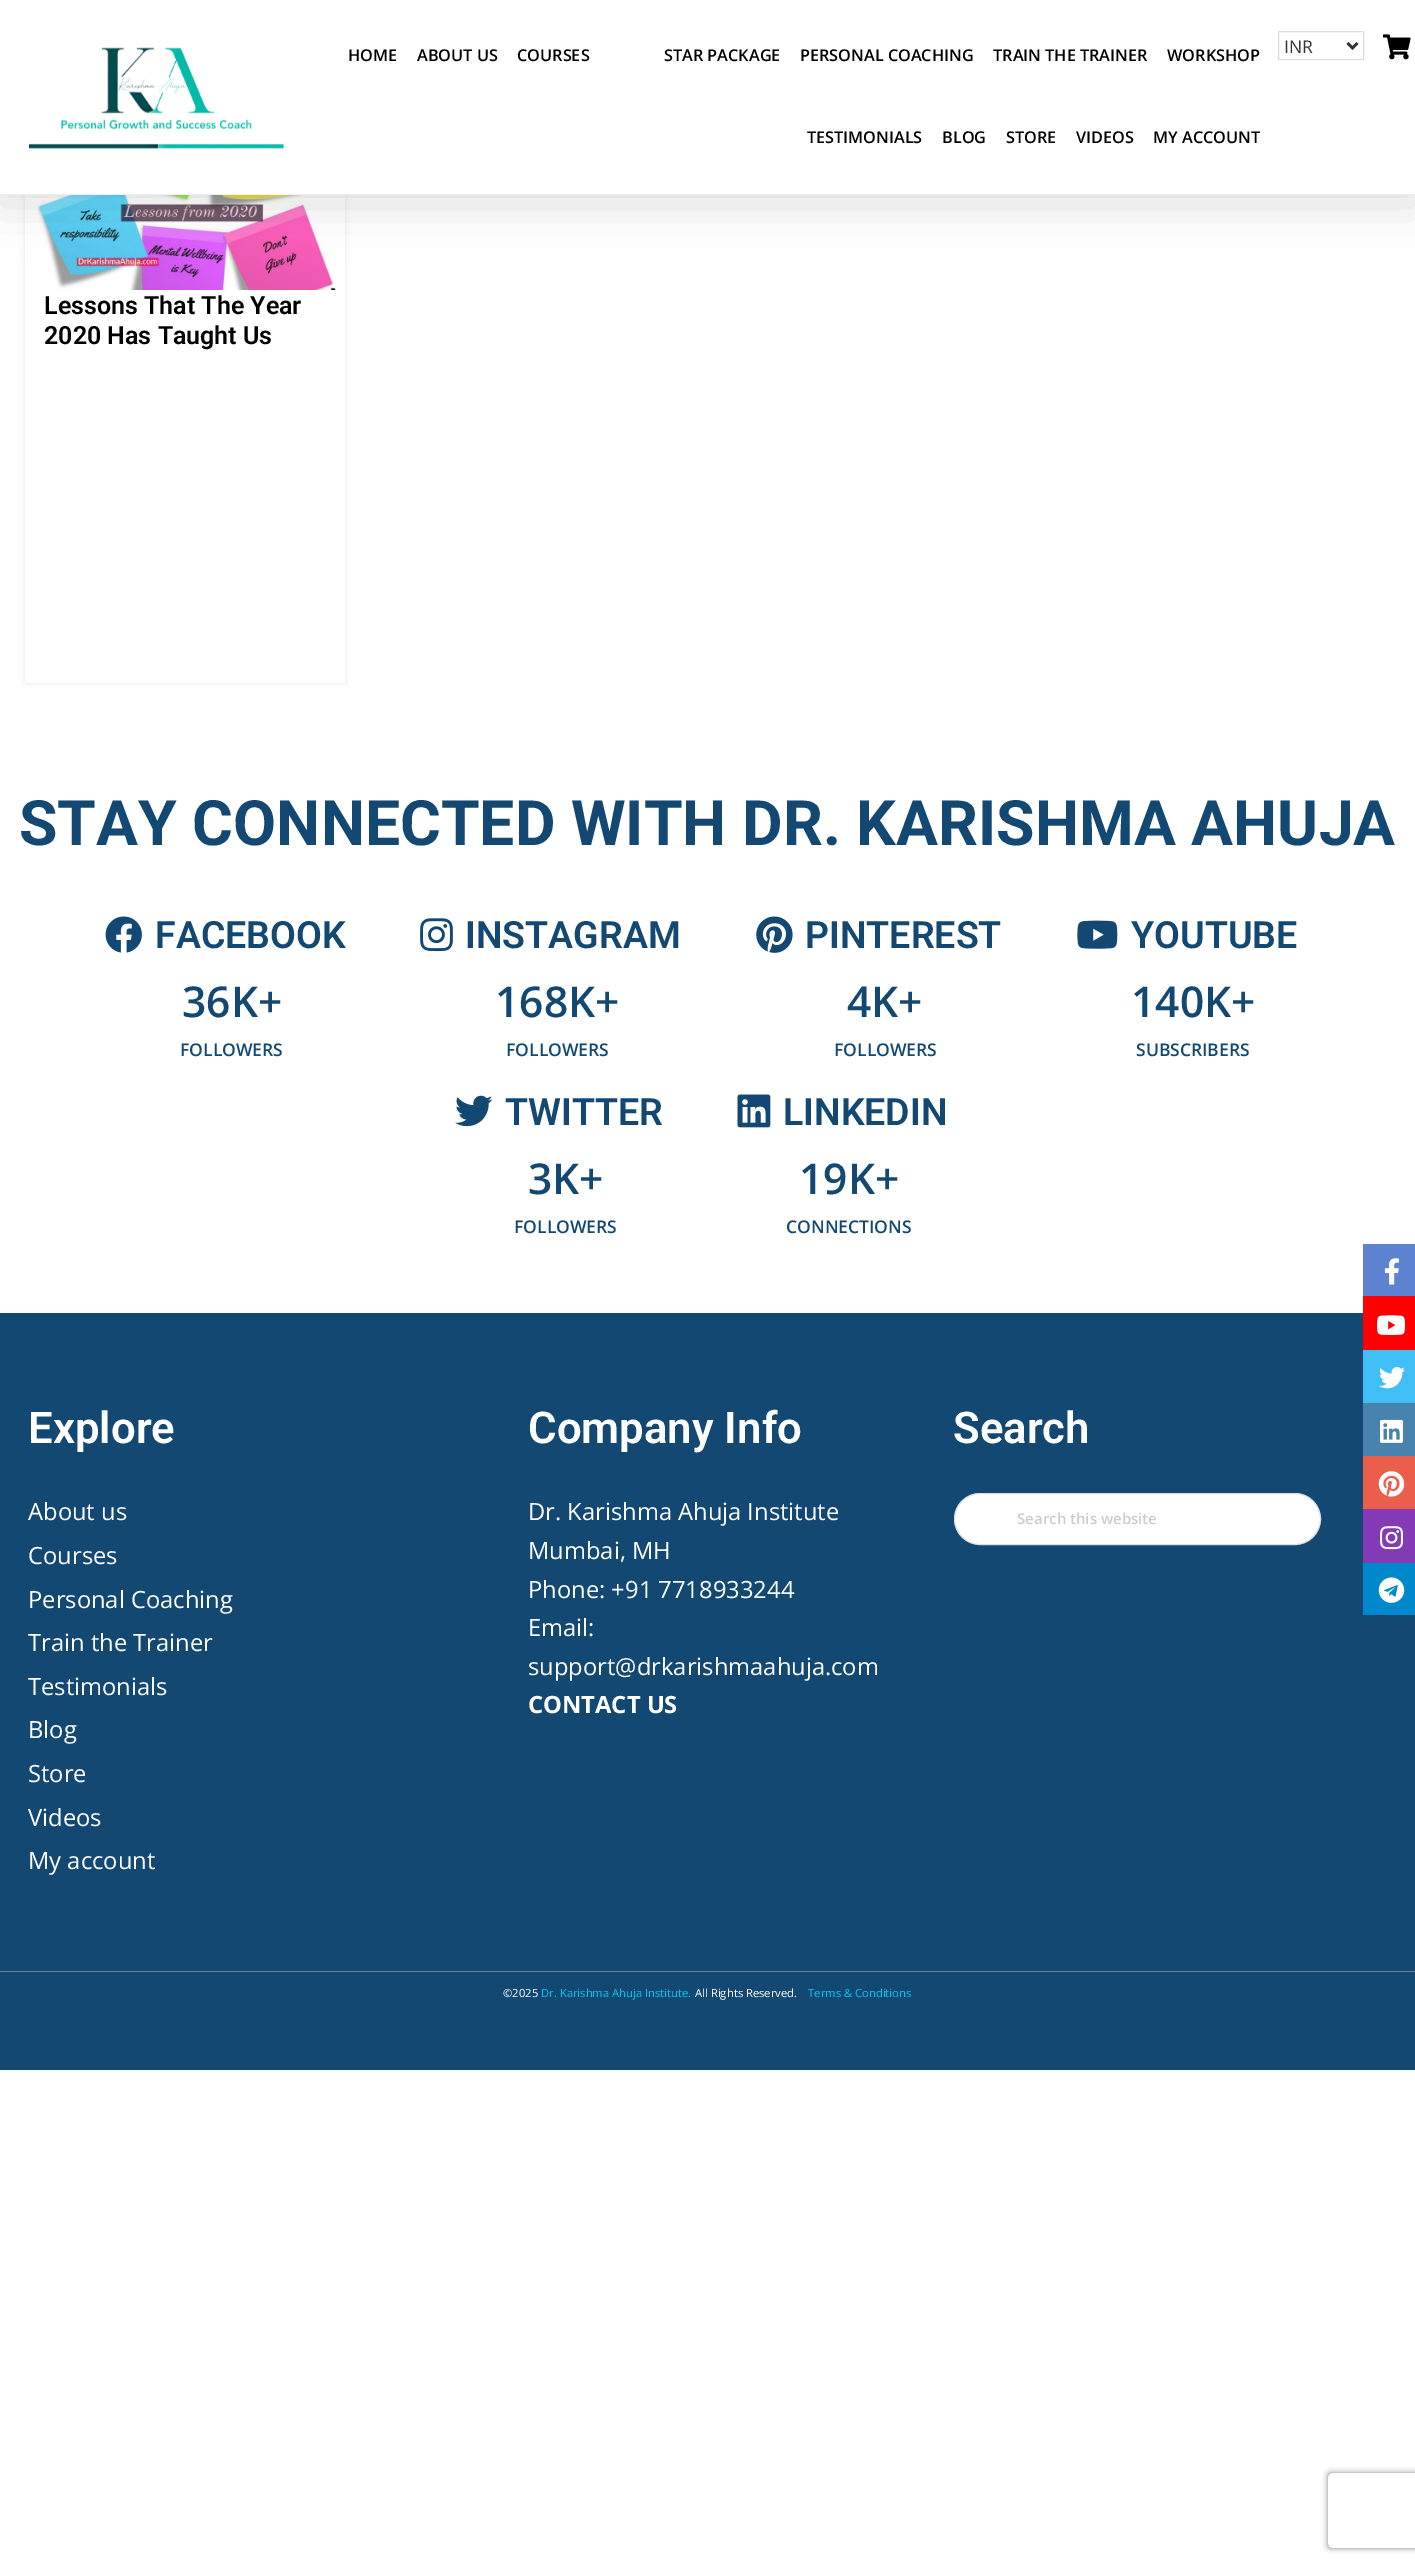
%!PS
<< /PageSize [1415 2565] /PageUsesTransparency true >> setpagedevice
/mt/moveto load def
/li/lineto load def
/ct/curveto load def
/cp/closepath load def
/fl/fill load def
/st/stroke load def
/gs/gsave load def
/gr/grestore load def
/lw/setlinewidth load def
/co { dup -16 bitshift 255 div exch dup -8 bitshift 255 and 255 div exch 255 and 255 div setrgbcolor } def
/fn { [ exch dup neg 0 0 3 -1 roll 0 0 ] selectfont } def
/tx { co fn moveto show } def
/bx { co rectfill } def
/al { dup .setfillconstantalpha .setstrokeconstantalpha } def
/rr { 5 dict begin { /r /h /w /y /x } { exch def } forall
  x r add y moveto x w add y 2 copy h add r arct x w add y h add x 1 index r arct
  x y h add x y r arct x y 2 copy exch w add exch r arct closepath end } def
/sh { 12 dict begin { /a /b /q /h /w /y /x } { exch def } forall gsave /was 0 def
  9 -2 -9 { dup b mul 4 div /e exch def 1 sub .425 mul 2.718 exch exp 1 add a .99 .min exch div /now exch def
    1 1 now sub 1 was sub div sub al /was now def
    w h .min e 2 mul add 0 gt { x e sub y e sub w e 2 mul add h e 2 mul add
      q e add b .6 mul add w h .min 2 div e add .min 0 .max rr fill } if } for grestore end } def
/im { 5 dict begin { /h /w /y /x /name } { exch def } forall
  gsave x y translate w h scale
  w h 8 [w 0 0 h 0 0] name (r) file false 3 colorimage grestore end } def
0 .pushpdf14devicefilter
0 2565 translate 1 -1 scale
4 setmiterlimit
0 0 1415 2565 16#FFFFFF bx
16#323232 co
25 120 320 563 0 3 .1 sh
25 195 320 488 16#FFFFFF bx
(media/3.raw) 37 195 299 95 im
16#000000 co
-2 4 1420 200 0 25 .14 sh
0 0 1415 194 16#FFFFFF bx
0 194 1415 1 16#EEEEEE bx
(media/1.raw) 29 47 255 103 im
16#DDDDDD co
1278.5 31.5 85 28 rectstroke
16#333333 co
2.5 lw
1347.5 43 mt 1352.5 48 li 1357.5 43 li st
(media/2.raw) 1383 34 28 26 im
1363 1244 52 52 16#5D82D1 bx
(media/4.raw) 1384 1258 15 27 im
0 1313 1415 658 16#124871 bx
1363 1296 52 54 16#FF0000 bx
(media/5.raw) 1377 1315 28 20 im
1363 1350 52 53 16#40BFF5 bx
(media/6.raw) 1379 1367 26 22 im
1363 1403 52 53 16#4883AE bx
(media/7.raw) 1380 1419 23 24 im
1363 1456 52 53 16#EB5E4C bx
(media/8.raw) 1378 1471 27 26 im
1363 1509 52 54 16#833AB4 bx
(media/9.raw) 1380 1526 23 24 im
1363 1563 52 52 16#0088CC bx
(media/10.raw) 1378 1577 27 26 im
(media/11.raw) 105 916 37 37 im
(media/12.raw) 420 918 33 34 im
(media/13.raw) 756 916 37 37 im
(media/14.raw) 1077 920 41 29 im
(media/15.raw) 455 1095 38 32 im
(media/16.raw) 737 1094 34 34 im
16#FFFFFF co
954.5 1493.5 366 51 25.5 rr gs fl gr
16#DDDDDD co
1 lw
st
0 1972 1415 98 16#124871 bx
0 1971 1415 1 16#7D7D7D bx
gs
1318 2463 mt 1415 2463 li 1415 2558 li 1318 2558 li cp 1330.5 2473 mt 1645.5 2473 li 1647 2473 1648 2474 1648 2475.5 ct 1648 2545.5 li 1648 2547 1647 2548 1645.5 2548 ct 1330.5 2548 li 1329 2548 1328 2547 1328 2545.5 ct 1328 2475.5 li 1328 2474 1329 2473 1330.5 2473 ct cp eoclip newpath
16#808080 co
1328 2473 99 75 2.5 3 1 sh
gr
(INR) 1284 53 /OpenSans-Regular 17.5 16#333333 tx
(HOME) 348 61 /OpenSans-SemiBold 16.25 16#000000 tx
(ABOUT US) 417 61 /OpenSans-SemiBold 16.25 16#000000 tx
(COURSES) 517 61 /OpenSans-SemiBold 16.25 16#000000 tx
(STAR PACKAGE) 664 61 /OpenSans-SemiBold 16.25 16#000000 tx
(PERSONAL COACHING) 800 61 /OpenSans-SemiBold 16.25 16#000000 tx
(TRAIN THE TRAINER) 993 61 /OpenSans-SemiBold 16.25 16#000000 tx
(WORKSHOP) 1167 61 /OpenSans-SemiBold 16.25 16#000000 tx
(TESTIMONIALS) 807 143 /OpenSans-SemiBold 16.25 16#000000 tx
(BLOG) 942 143 /OpenSans-SemiBold 16.25 16#000000 tx
(STORE) 1006 143 /OpenSans-SemiBold 16.25 16#000000 tx
(VIDEOS) 1076 143 /OpenSans-SemiBold 16.25 16#000000 tx
(MY ACCOUNT) 1153 143 /OpenSans-SemiBold 16.25 16#000000 tx
(Lessons That The Year) 44 314 /Roboto-SemiBold 25 16#000000 tx
(2020 Has Taught Us) 44 344 /Roboto-SemiBold 25 16#000000 tx
(STAY CONNECTED WITH DR. KARISHMA AHUJA) 19 845 /Roboto-Bold 62.5 16#124871 tx
(FACEBOOK) 155 948 /Roboto-SemiBold 37.5 16#124871 tx
(36K+) 182 1017 /OpenSans-SemiBold 42.5 16#124871 tx
(FOLLOWERS) 180 1056 /OpenSans-SemiBold 17.5 16#124871 tx
(INSTAGRAM) 465 948 /Roboto-SemiBold 37.5 16#124871 tx
(168K+) 495 1017 /OpenSans-SemiBold 42.5 16#124871 tx
(FOLLOWERS) 506 1056 /OpenSans-SemiBold 17.5 16#124871 tx
(PINTEREST) 805 948 /Roboto-SemiBold 37.5 16#124871 tx
(4K+) 847 1017 /OpenSans-SemiBold 42.5 16#124871 tx
(FOLLOWERS) 834 1056 /OpenSans-SemiBold 17.5 16#124871 tx
(YOUTUBE) 1131 948 /Roboto-SemiBold 37.5 16#124871 tx
(140K+) 1131 1017 /OpenSans-SemiBold 42.5 16#124871 tx
(SUBSCRIBERS) 1136 1056 /OpenSans-SemiBold 17.5 16#124871 tx
(TWITTER) 505 1125 /Roboto-SemiBold 37.5 16#124871 tx
(3K+) 528 1194 /OpenSans-SemiBold 42.5 16#124871 tx
(FOLLOWERS) 514 1233 /OpenSans-SemiBold 17.5 16#124871 tx
(LINKEDIN) 783 1125 /Roboto-SemiBold 37.5 16#124871 tx
(19K+) 799 1194 /OpenSans-SemiBold 42.5 16#124871 tx
(CONNECTIONS) 786 1233 /OpenSans-SemiBold 17.5 16#124871 tx
(Explore) 28 1443 /Roboto-SemiBold 43.75 16#FFFFFF tx
(About us) 28 1520 /OpenSans-Regular 23.75 16#FFFFFF tx
(Courses) 28 1564 /OpenSans-Regular 23.75 16#FFFFFF tx
(Personal Coaching) 28 1608 /OpenSans-Regular 23.75 16#FFFFFF tx
(Train the Trainer) 28 1651 /OpenSans-Regular 23.75 16#FFFFFF tx
(Testimonials) 28 1695 /OpenSans-Regular 23.75 16#FFFFFF tx
(Blog) 28 1738 /OpenSans-Regular 23.75 16#FFFFFF tx
(Store) 28 1782 /OpenSans-Regular 23.75 16#FFFFFF tx
(Videos) 28 1826 /OpenSans-Regular 23.75 16#FFFFFF tx
(My account) 28 1869 /OpenSans-Regular 23.75 16#FFFFFF tx
(Company Info) 528 1443 /Roboto-SemiBold 43.75 16#FFFFFF tx
(Dr. Karishma Ahuja Institute) 528 1520 /OpenSans-Regular 23.75 16#FFFFFF tx
(Mumbai, MH) 528 1559 /OpenSans-Regular 23.75 16#FFFFFF tx
(Phone: +91 7718933244) 528 1598 /OpenSans-Regular 23.75 16#FFFFFF tx
(Email:) 528 1636 /OpenSans-Regular 23.75 16#FFFFFF tx
(support@drkarishmaahuja.com) 528 1675 /OpenSans-Regular 23.75 16#FFFFFF tx
(CONTACT US) 528 1713 /OpenSans-Bold 23.75 16#FFFFFF tx
(Search) 953 1443 /Roboto-SemiBold 43.75 16#FFFFFF tx
(Search this website) 1017 1524 /OpenSans-SemiBold 15 16#CCCCCC tx
(©2025) 503 1997 /OpenSans-Regular 11.25 16#FFFFFF tx
(Dr. Karishma Ahuja Institute.) 541 1997 /OpenSans-Regular 11.25 16#00CBEE tx
(All Rights Reserved.) 695 1997 /OpenSans-Regular 11.25 16#FFFFFF tx
(Terms & Conditions) 808 1997 /OpenSans-Regular 11.25 16#00CBEE tx
.poppdf14devicefilter showpage
